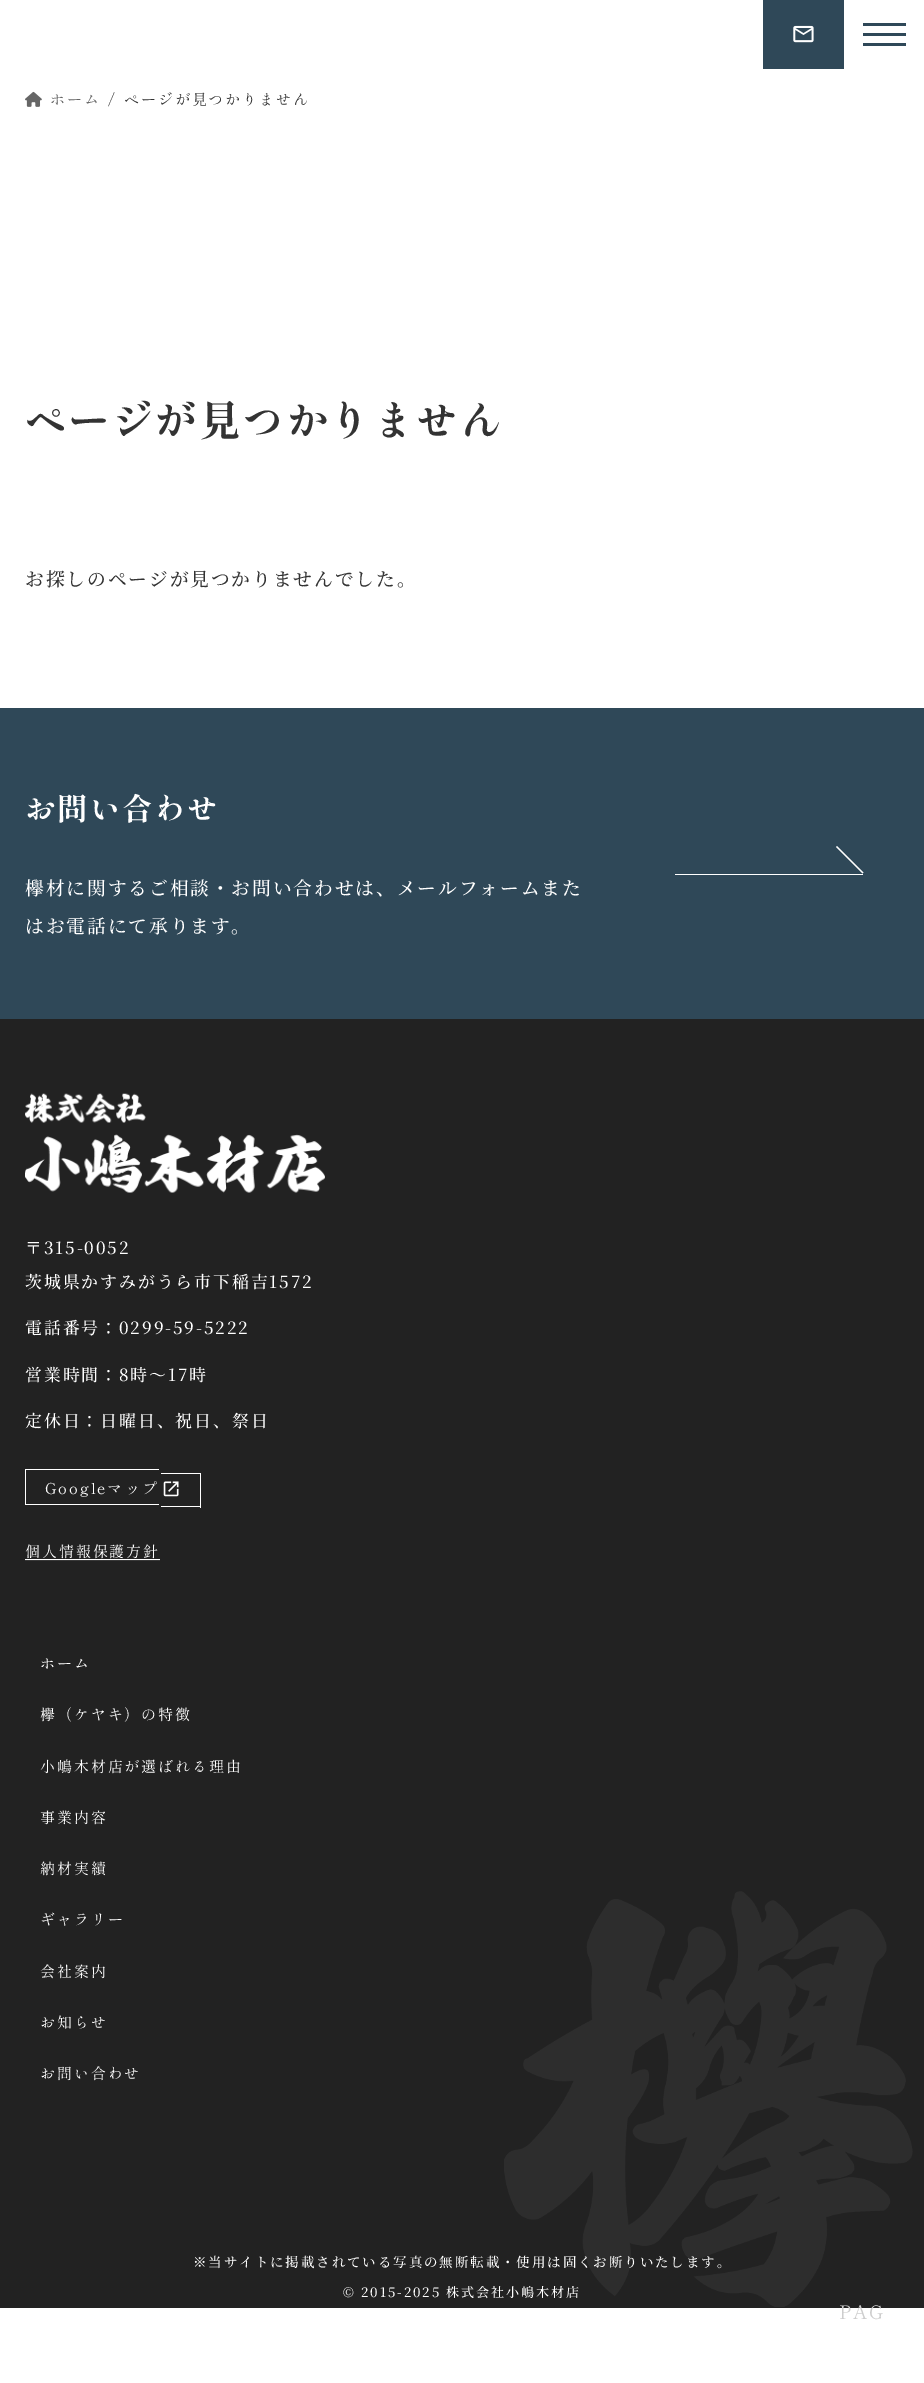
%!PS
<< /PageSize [924 2383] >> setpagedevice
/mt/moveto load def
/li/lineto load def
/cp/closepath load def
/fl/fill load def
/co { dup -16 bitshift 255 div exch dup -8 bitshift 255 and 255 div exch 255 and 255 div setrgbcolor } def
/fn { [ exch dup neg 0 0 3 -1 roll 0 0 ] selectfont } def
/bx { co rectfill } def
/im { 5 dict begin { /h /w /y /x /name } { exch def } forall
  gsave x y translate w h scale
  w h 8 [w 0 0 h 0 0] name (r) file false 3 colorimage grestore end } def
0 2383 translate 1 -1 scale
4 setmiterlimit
0 0 924 2383 16#FFFFFF bx
763 0 81 69 16#2F4858 bx
(media/1.raw) 793 25 21 18 im
863 23 43 3 16#2F4858 bx
863 33 43 3 16#2F4858 bx
863 43 43 3 16#2F4858 bx
(media/2.raw) 25 91 17 16 im
0 708 924 311 16#2F4858 bx
675 874 188 1 16#FFFFFF bx
837 846 mt 863.5 872.5 li 862.5 873.5 li 836 847 li cp fl
0 1019 924 1289 16#222222 bx
(media/3.raw) 25 1093 300 100 im
25 1469 134 1 16#FFFFFF bx
25 1504 134 1 16#FFFFFF bx
25 1469 1 36 16#FFFFFF bx
161 1473 40 1 16#FFFFFF bx
200 1473 1 35 16#FFFFFF bx
161 1506 40 1 16#FFFFFF bx
(media/4.raw) 163 1481 16 16 im
25 1560 135 1 16#383838 bx
25 1559 135 1 16#FFFFFF bx
(media/5.raw) 504 1891 409 416 im
/ShipporiMinchoB1-Regular 15 fn
16#666666 co
50 105 mt 1.9 0 (ホーム) ashow
16#333333 co
108 105 mt 1.9 0 (/) ashow
124 105 mt 1.9 0 (ページが見つかりません) ashow
/ShipporiMinchoB1-Bold 41.6 fn
25 436 mt 1.9 0 (ページが見つかりません) ashow
/NotoSerifJP-Medium 18.75 fn
25 586 mt 1.9 0 (お探しのページが見つかりませんでした。) ashow
/ShipporiMinchoB1-Bold 30.5 fn
16#FFFFFF co
25 820 mt 1.9 0 (お問い合わせ) ashow
/NotoSerifJP-Medium 18.75 fn
25 895 mt 1.9 0 (欅材に関するご相談・お問い合わせは、メールフォームまた) ashow
25 933 mt 1.9 0 (はお電話にて承ります。) ashow
/NotoSerifJP-Medium 16.9 fn
25 1254 mt 1.9 0 (〒315-0052) ashow
25 1288 mt 1.9 0 (茨城県かすみがうら市下稲吉1572) ashow
25 1334 mt 1.9 0 (電話番号：0299-59-5222) ashow
25 1381 mt 1.9 0 (営業時間：8時～17時) ashow
25 1427 mt 1.9 0 (定休日：日曜日、祝日、祭日) ashow
/ShipporiMinchoB1-Regular 15.25 fn
45 1494 mt 1.9 0 (Googleマップ) ashow
/ShipporiMinchoB1-Regular 15 fn
25 1557 mt 1.9 0 (個人情報保護方針) ashow
40 1669 mt 1.9 0 (ホーム) ashow
40 1720 mt 1.9 0 (欅（ケヤキ）の特徴) ashow
40 1772 mt 1.9 0 (小嶋木材店が選ばれる理由) ashow
40 1823 mt 1.9 0 (事業内容) ashow
40 1874 mt 1.9 0 (納材実績) ashow
40 1925 mt 1.9 0 (ギャラリー) ashow
40 1977 mt 1.9 0 (会社案内) ashow
40 2028 mt 1.9 0 (お知らせ) ashow
40 2079 mt 1.9 0 (お問い合わせ) ashow
/NotoSerifJP-Medium 13.5 fn
193 2267 mt 1.9 0 (※当サイトに掲載されている写真の無断転載・使用は固くお断りいたします。) ashow
/NotoSerifJP-Medium 13.1 fn
343 2297 mt 1.9 0 (© 2015-2025 株式会社小嶋木材店) ashow
/ShipporiMinchoB1-Regular 18.75 fn
16#CDCDCD co
839 2319 mt 1.9 0 (PAG) ashow
showpage
